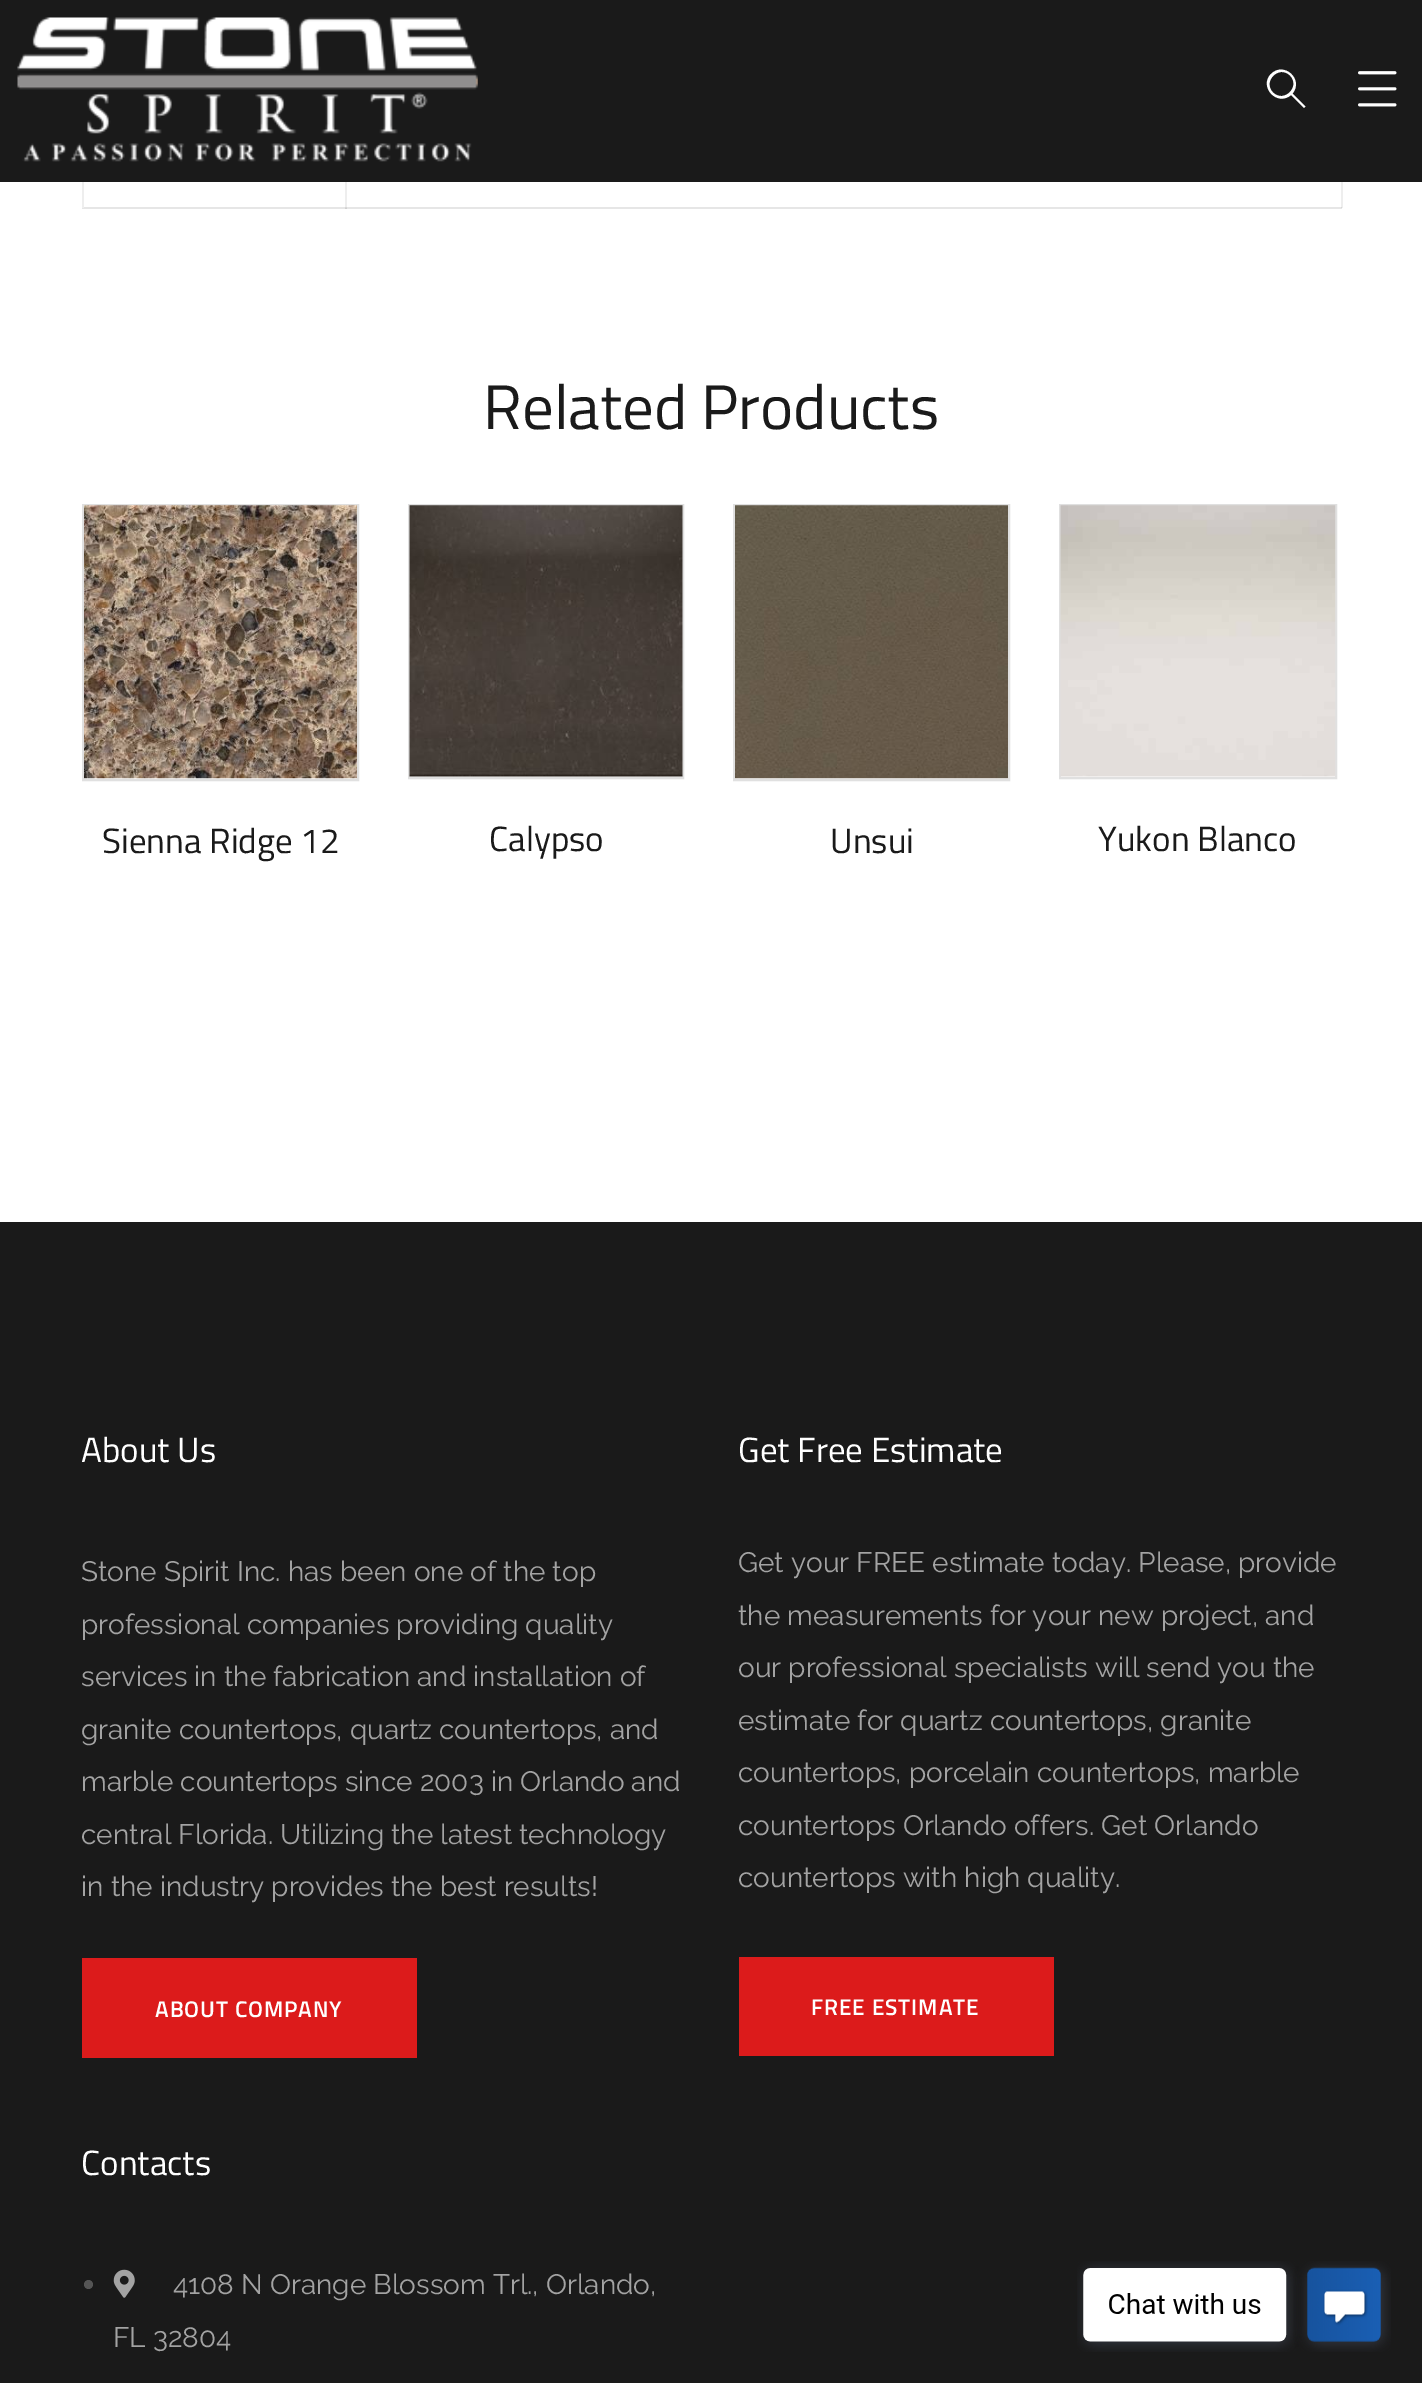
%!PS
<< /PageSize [1422 2383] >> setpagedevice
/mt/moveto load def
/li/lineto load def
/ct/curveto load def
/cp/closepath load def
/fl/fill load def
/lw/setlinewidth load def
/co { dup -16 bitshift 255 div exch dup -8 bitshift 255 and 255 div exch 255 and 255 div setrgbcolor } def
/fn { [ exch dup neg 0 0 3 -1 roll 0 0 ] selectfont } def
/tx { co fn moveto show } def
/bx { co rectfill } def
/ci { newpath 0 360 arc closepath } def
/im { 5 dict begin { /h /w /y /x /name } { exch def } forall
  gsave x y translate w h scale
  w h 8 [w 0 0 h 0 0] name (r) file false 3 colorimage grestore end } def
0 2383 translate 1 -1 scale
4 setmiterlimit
0 0 1422 2383 16#FFFFFF bx
82 207 1260 2 16#E6E6E6 bx
345 208 2 1 16#CFCFCF bx
0 0 1422 182 16#1A1A1A bx
(media/1.raw) 17 17 461 145 im
16#FFFFFF co
1305.5 106.5 mt 1304 108 li 1291 95 li 1277 107 1258.5 86.5 1271 74 ct 1284 61 1304 79.5 1292.5 93.5 ct cp 1273 92.5 mt 1284 103.5 1301 86.5 1290 75.5 ct 1279 64.5 1262 81.5 1273 92.5 ct cp fl
(media/2.raw) 1358 71 39 36 im
82 182 2 26 16#EEEEEE bx
1341 182 2 26 16#EEEEEE bx
1341 207 1 1 16#D6D6D6 bx
345 182 2 26 16#EEEEEE bx
345 207 2 1 16#D6D6D6 bx
16#E0E0E0 co
2 lw
83 505 275 275 rectstroke
(media/3.raw) 84 505 273 274 im
409 505 274 273 rectstroke
(media/4.raw) 409 505 274 272 im
734 505 275 275 rectstroke
(media/5.raw) 735 505 273 274 im
1060 505 276 273 rectstroke
(media/6.raw) 1060 505 276 272 im
0 1222 1422 1161 16#1A1A1A bx
82 1958 335 100 16#DC1B1B bx
739 1957 315 99 16#DC1B1B bx
16#555555 co
88.5 2284.5 4.5 ci fl
(media/7.raw) 113 2269 22 29 im
(media/8.raw) 1077 2261 314 91 im
(Related Products) 483 429 /TitilliumWeb-Regular 63 16#1A1A1A tx
(Sienna Ridge 12) 102 853 /TitilliumWeb-Regular 35 16#1A1A1A tx
(Calypso) 489 851 /TitilliumWeb-Regular 35 16#1A1A1A tx
(Unsui) 830 853 /TitilliumWeb-Regular 35 16#1A1A1A tx
(Yukon Blanco) 1098 851 /TitilliumWeb-Regular 35 16#1A1A1A tx
(About Us) 81 1462 /TitilliumWeb-Regular 35 16#FFFFFF tx
(Stone Spirit Inc. has been one of the top) 81 1581 /Raleway-Regular 28 16#A3A3A3 tx
(professional companies providing quality) 81 1634 /Raleway-Regular 28 16#A3A3A3 tx
(services in the fabrication and installation of) 81 1686 /Raleway-Regular 28 16#A3A3A3 tx
(granite countertops, quartz countertops, and) 81 1739 /Raleway-Regular 28 16#A3A3A3 tx
(marble countertops since 2003 in Orlando and) 81 1791 /Raleway-Regular 28 16#A3A3A3 tx
(central Florida. Utilizing the latest technology) 81 1844 /Raleway-Regular 28 16#A3A3A3 tx
(in the industry provides the best results!) 81 1896 /Raleway-Regular 28 16#A3A3A3 tx
/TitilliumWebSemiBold-SemiBold 22.75 fn
16#FFFFFF co
155 2017 mt .9 0 (ABOUT COMPANY) ashow
(Get Free Estimate) 738 1462 /TitilliumWeb-Regular 35 16#FFFFFF tx
(Get your FREE estimate today. Please, provide) 738 1572 /Raleway-Regular 28 16#A3A3A3 tx
(the measurements for your new project, and) 738 1625 /Raleway-Regular 28 16#A3A3A3 tx
(our professional specialists will send you the) 738 1677 /Raleway-Regular 28 16#A3A3A3 tx
(estimate for quartz countertops, granite) 738 1730 /Raleway-Regular 28 16#A3A3A3 tx
(countertops, porcelain countertops, marble) 738 1782 /Raleway-Regular 28 16#A3A3A3 tx
(countertops Orlando offers. Get Orlando) 738 1835 /Raleway-Regular 28 16#A3A3A3 tx
(countertops with high quality.) 738 1887 /Raleway-Regular 28 16#A3A3A3 tx
/TitilliumWebSemiBold-SemiBold 22.75 fn
16#FFFFFF co
811 2015 mt .9 0 (FREE ESTIMATE) ashow
(Contacts) 81 2175 /TitilliumWeb-Regular 35 16#FFFFFF tx
(4108 N Orange Blossom Trl., Orlando,) 173 2294 /Raleway-Regular 28 16#A3A3A3 tx
(FL 32804) 113 2347 /Raleway-Regular 28 16#A3A3A3 tx
showpage
